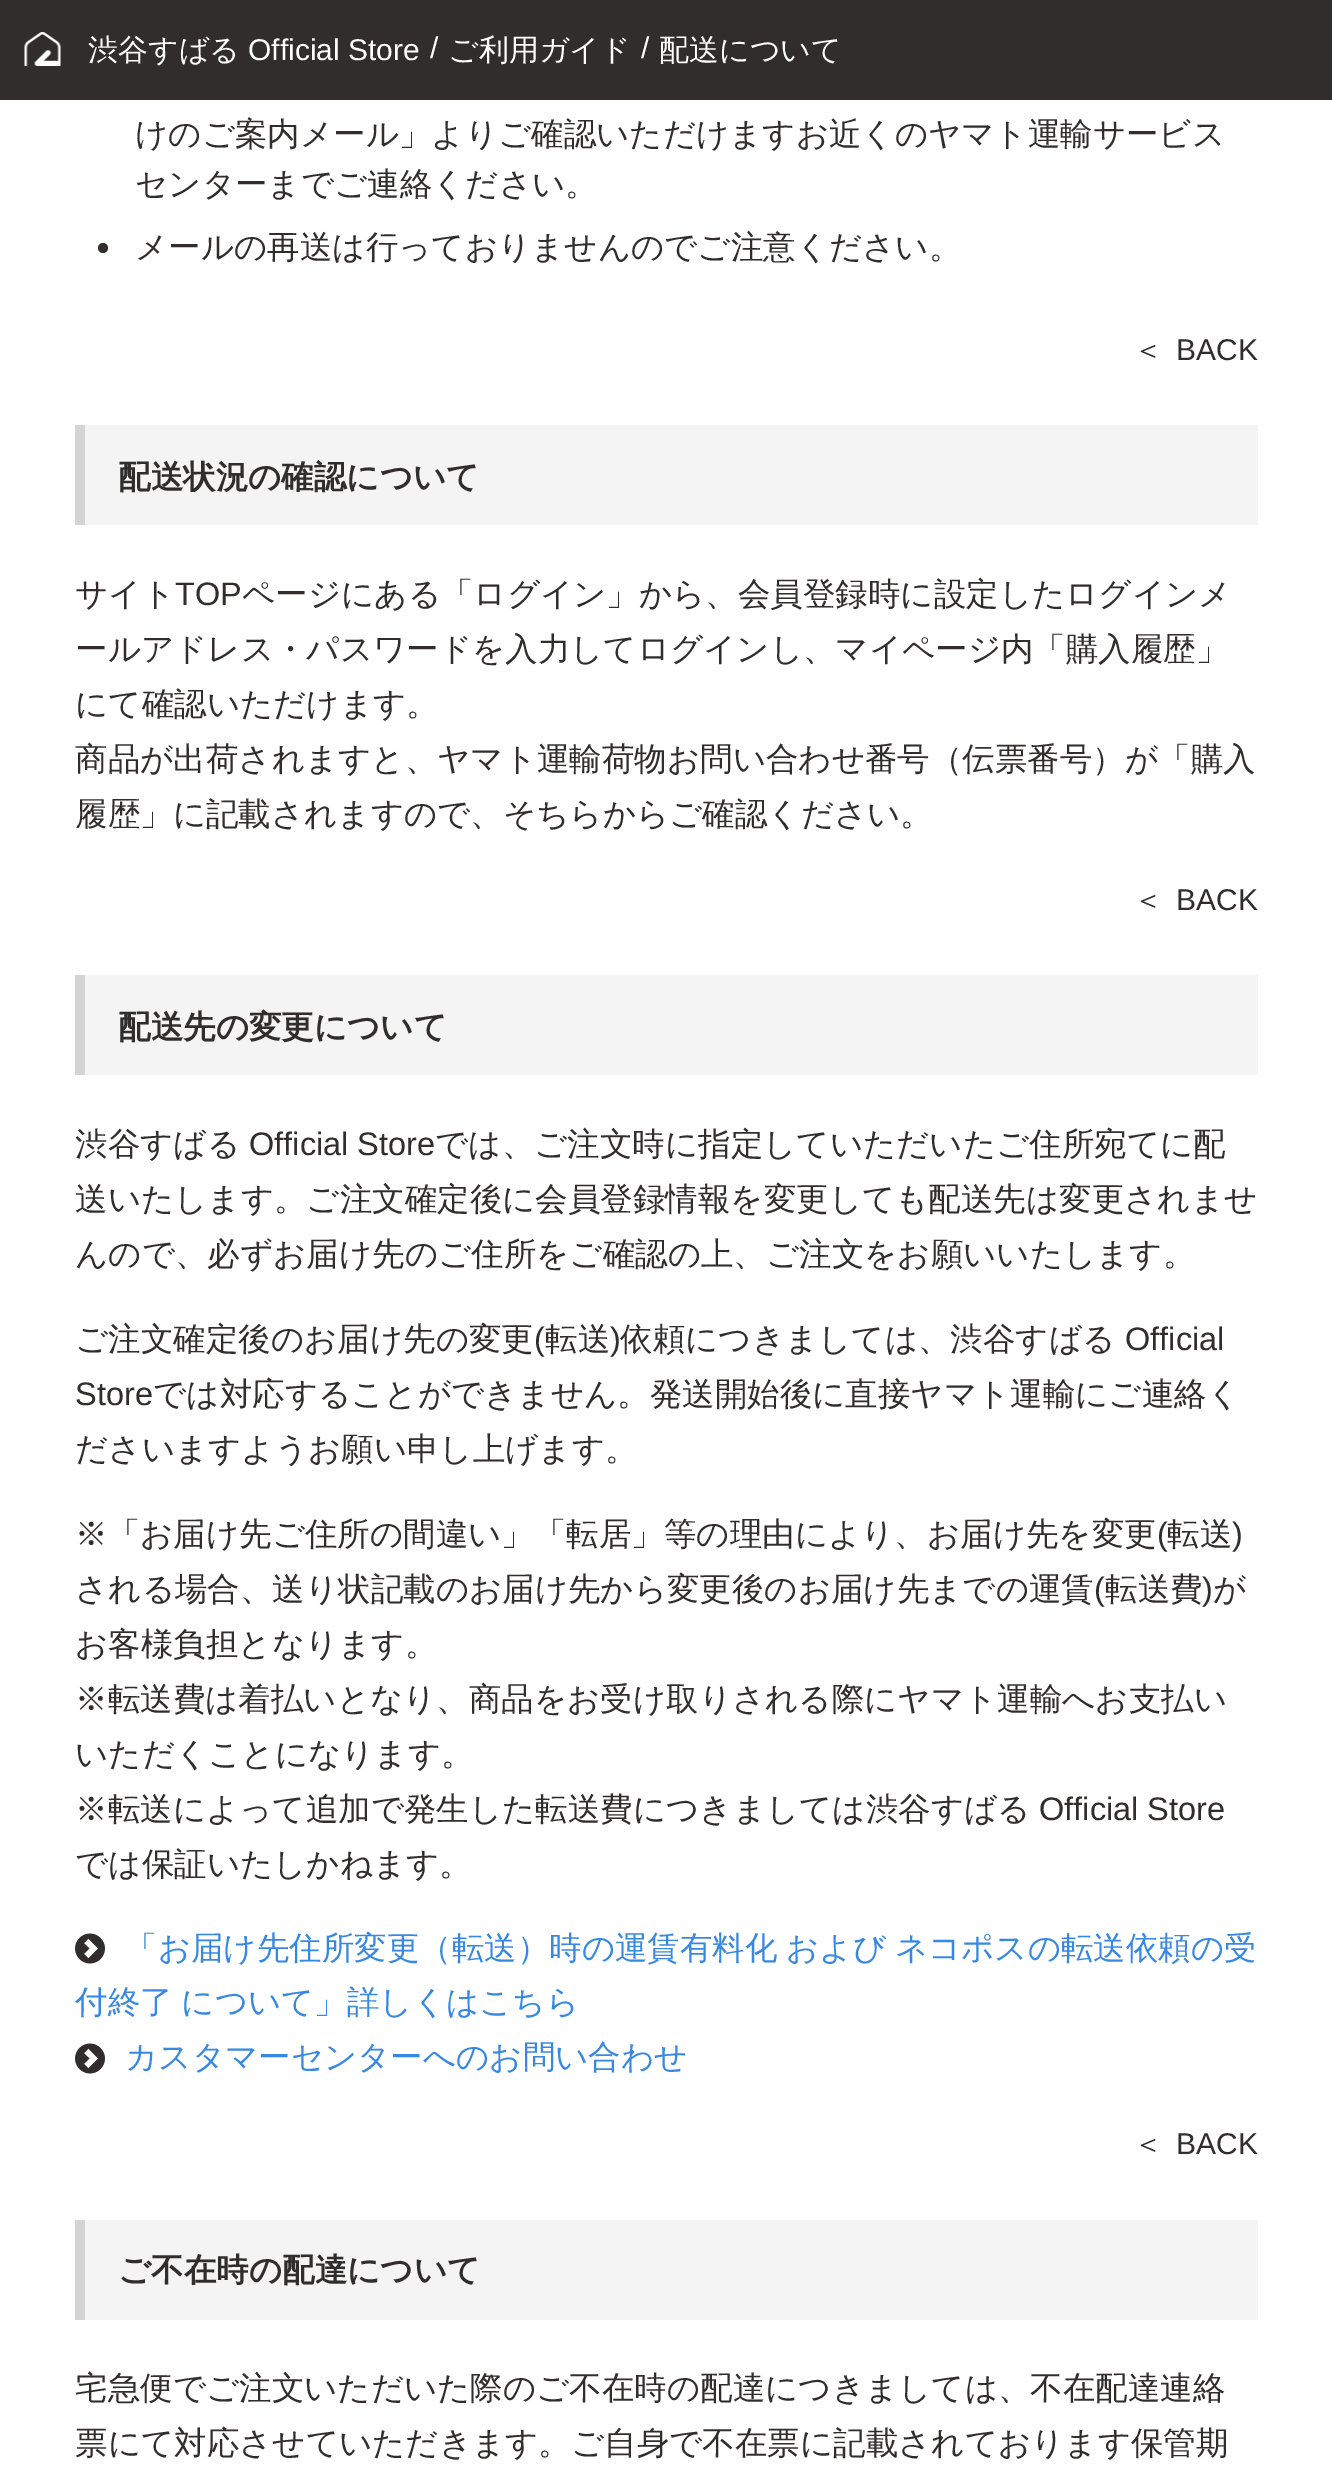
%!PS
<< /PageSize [1332 2467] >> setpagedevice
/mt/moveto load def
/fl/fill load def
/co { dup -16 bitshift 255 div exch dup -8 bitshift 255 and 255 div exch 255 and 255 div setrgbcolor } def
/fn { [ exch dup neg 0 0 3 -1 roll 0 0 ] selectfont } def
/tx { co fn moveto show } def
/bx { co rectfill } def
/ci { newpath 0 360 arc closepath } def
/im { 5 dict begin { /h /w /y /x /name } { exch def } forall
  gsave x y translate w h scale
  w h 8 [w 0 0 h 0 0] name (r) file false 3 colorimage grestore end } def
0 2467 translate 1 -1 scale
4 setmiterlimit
0 0 1332 2467 16#FFFFFF bx
0 0 1332 100 16#302D2C bx
(media/1.raw) 24 32 37 34 im
103 248 5 ci fl
85 425 1173 100 16#F4F4F4 bx
75 425 10 100 16#D4D4D4 bx
85 975 1173 100 16#F4F4F4 bx
75 975 10 100 16#D4D4D4 bx
(media/2.raw) 75 1933 30 31 im
(media/2.raw) 75 2043 30 31 im
85 2220 1173 100 16#F4F4F4 bx
75 2220 10 100 16#D4D4D4 bx
(渋谷すばる) 88 60 /WenQuanYiZenHei-Medium 30 16#FFFFFF tx
(Official Store) 248 60 /LiberationSans-Regular 30 16#FFFFFF tx
(/) 430 58 /LiberationSans-Regular 30 16#FFFFFF tx
(ご利用ガイド) 448 60 /WenQuanYiZenHei-Medium 30 16#FFFFFF tx
(/) 641 58 /LiberationSans-Regular 30 16#FFFFFF tx
(配送について) 659 60 /WenQuanYiZenHei-Medium 30 16#FFFFFF tx
(けのご案内メール」よりご確認いただけますお近くのヤマト運輸サービス) 135 145 /WenQuanYiZenHei-Medium 32.5 16#302D2C tx
(センターまでご連絡ください。) 135 195 /WenQuanYiZenHei-Medium 32.5 16#302D2C tx
(メールの再送は行っておりませんのでご注意ください。) 135 258 /WenQuanYiZenHei-Medium 32.5 16#302D2C tx
(＜) 1133 360 /WenQuanYiZenHei-Medium 30 16#302D2C tx
(BACK) 1176 360 /LiberationSans-Regular 30 16#302D2C tx
(配送状況の確認について) 118 488 /WenQuanYiZenHei-Bold 32.5 16#302D2C tx
(サイト) 75 605 /WenQuanYiZenHei-Medium 32.5 16#302D2C tx
(TOP) 175 605 /LiberationSans-Regular 32.5 16#302D2C tx
(ページにある「ログイン」から、会員登録時に設定したログインメ) 242 605 /WenQuanYiZenHei-Medium 32.5 16#302D2C tx
(ールアドレス・パスワードを入力してログインし、マイページ内「購入履歴」) 75 660 /WenQuanYiZenHei-Medium 32.5 16#302D2C tx
(にて確認いただけます。) 75 715 /WenQuanYiZenHei-Medium 32.5 16#302D2C tx
(商品が出荷されますと、ヤマト運輸荷物お問い合わせ番号（伝票番号）が「購入) 75 770 /WenQuanYiZenHei-Medium 32.5 16#302D2C tx
(履歴」に記載されますので、そちらからご確認ください。) 75 825 /WenQuanYiZenHei-Medium 32.5 16#302D2C tx
(＜) 1133 910 /WenQuanYiZenHei-Medium 30 16#302D2C tx
(BACK) 1176 910 /LiberationSans-Regular 30 16#302D2C tx
(配送先の変更について) 118 1038 /WenQuanYiZenHei-Bold 32.5 16#302D2C tx
(渋谷すばる) 75 1155 /WenQuanYiZenHei-Medium 32.5 16#302D2C tx
(Official Store) 249 1155 /LiberationSans-Regular 32.5 16#302D2C tx
(では、ご注文時に指定していただいたご住所宛てに配) 435 1155 /WenQuanYiZenHei-Medium 32.5 16#302D2C tx
(送いたします。ご注文確定後に会員登録情報を変更しても配送先は変更されませ) 75 1210 /WenQuanYiZenHei-Medium 32.5 16#302D2C tx
(んので、必ずお届け先のご住所をご確認の上、ご注文をお願いいたします。) 75 1265 /WenQuanYiZenHei-Medium 32.5 16#302D2C tx
(ご注文確定後のお届け先の変更) 75 1350 /WenQuanYiZenHei-Medium 32.5 16#302D2C tx
(\() 534 1350 /LiberationSans-Regular 32.5 16#302D2C tx
(転送) 545 1350 /WenQuanYiZenHei-Medium 32.5 16#302D2C tx
(\)) 610 1350 /LiberationSans-Regular 32.5 16#302D2C tx
(依頼につきましては、渋谷すばる) 620 1350 /WenQuanYiZenHei-Medium 32.5 16#302D2C tx
(Official) 1125 1350 /LiberationSans-Regular 32.5 16#302D2C tx
(Store) 75 1405 /LiberationSans-Regular 32.5 16#302D2C tx
(では対応することができません。発送開始後に直接ヤマト運輸にご連絡く) 153 1405 /WenQuanYiZenHei-Medium 32.5 16#302D2C tx
(ださいますようお願い申し上げます。) 75 1460 /WenQuanYiZenHei-Medium 32.5 16#302D2C tx
(※「お届け先ご住所の間違い」「転居」等の理由により、お届け先を変更) 75 1545 /WenQuanYiZenHei-Medium 32.5 16#302D2C tx
(\() 1157 1545 /LiberationSans-Regular 32.5 16#302D2C tx
(転送) 1167 1545 /WenQuanYiZenHei-Medium 32.5 16#302D2C tx
(\)) 1232 1545 /LiberationSans-Regular 32.5 16#302D2C tx
(される場合、送り状記載のお届け先から変更後のお届け先までの運賃) 75 1600 /WenQuanYiZenHei-Medium 32.5 16#302D2C tx
(\() 1094 1600 /LiberationSans-Regular 32.5 16#302D2C tx
(転送費) 1105 1600 /WenQuanYiZenHei-Medium 32.5 16#302D2C tx
(\)) 1202 1600 /LiberationSans-Regular 32.5 16#302D2C tx
(が) 1213 1600 /WenQuanYiZenHei-Medium 32.5 16#302D2C tx
(お客様負担となります。) 75 1655 /WenQuanYiZenHei-Medium 32.5 16#302D2C tx
(※転送費は着払いとなり、商品をお受け取りされる際にヤマト運輸へお支払い) 75 1710 /WenQuanYiZenHei-Medium 32.5 16#302D2C tx
(いただくことになります。) 75 1765 /WenQuanYiZenHei-Medium 32.5 16#302D2C tx
(※転送によって追加で発生した転送費につきましては渋谷すばる) 75 1820 /WenQuanYiZenHei-Medium 32.5 16#302D2C tx
(Official Store) 1039 1820 /LiberationSans-Regular 32.5 16#302D2C tx
(では保証いたしかねます。) 75 1875 /WenQuanYiZenHei-Medium 32.5 16#302D2C tx
16#3688E1 co
125 1959 mt -1 0 32 (「お届け先住所変更（転送）時の運賃有料化 および ネコポスの転送依頼の受) widthshow
75 2013 mt -1 0 32 (付終了 について」詳しくはこちら) widthshow
(カスタマーセンターへのお問い合わせ) 125 2068 /WenQuanYiZenHei-Medium 32.5 16#3688E1 tx
(＜) 1133 2154 /WenQuanYiZenHei-Medium 30 16#302D2C tx
(BACK) 1176 2154 /LiberationSans-Regular 30 16#302D2C tx
(ご不在時の配達について) 118 2281 /WenQuanYiZenHei-Bold 32.5 16#302D2C tx
(宅急便でご注文いただいた際のご不在時の配達につきましては、不在配達連絡) 75 2399 /WenQuanYiZenHei-Medium 32.5 16#302D2C tx
(票にて対応させていただきます。ご自身で不在票に記載されております保管期) 75 2454 /WenQuanYiZenHei-Medium 32.5 16#302D2C tx
showpage
